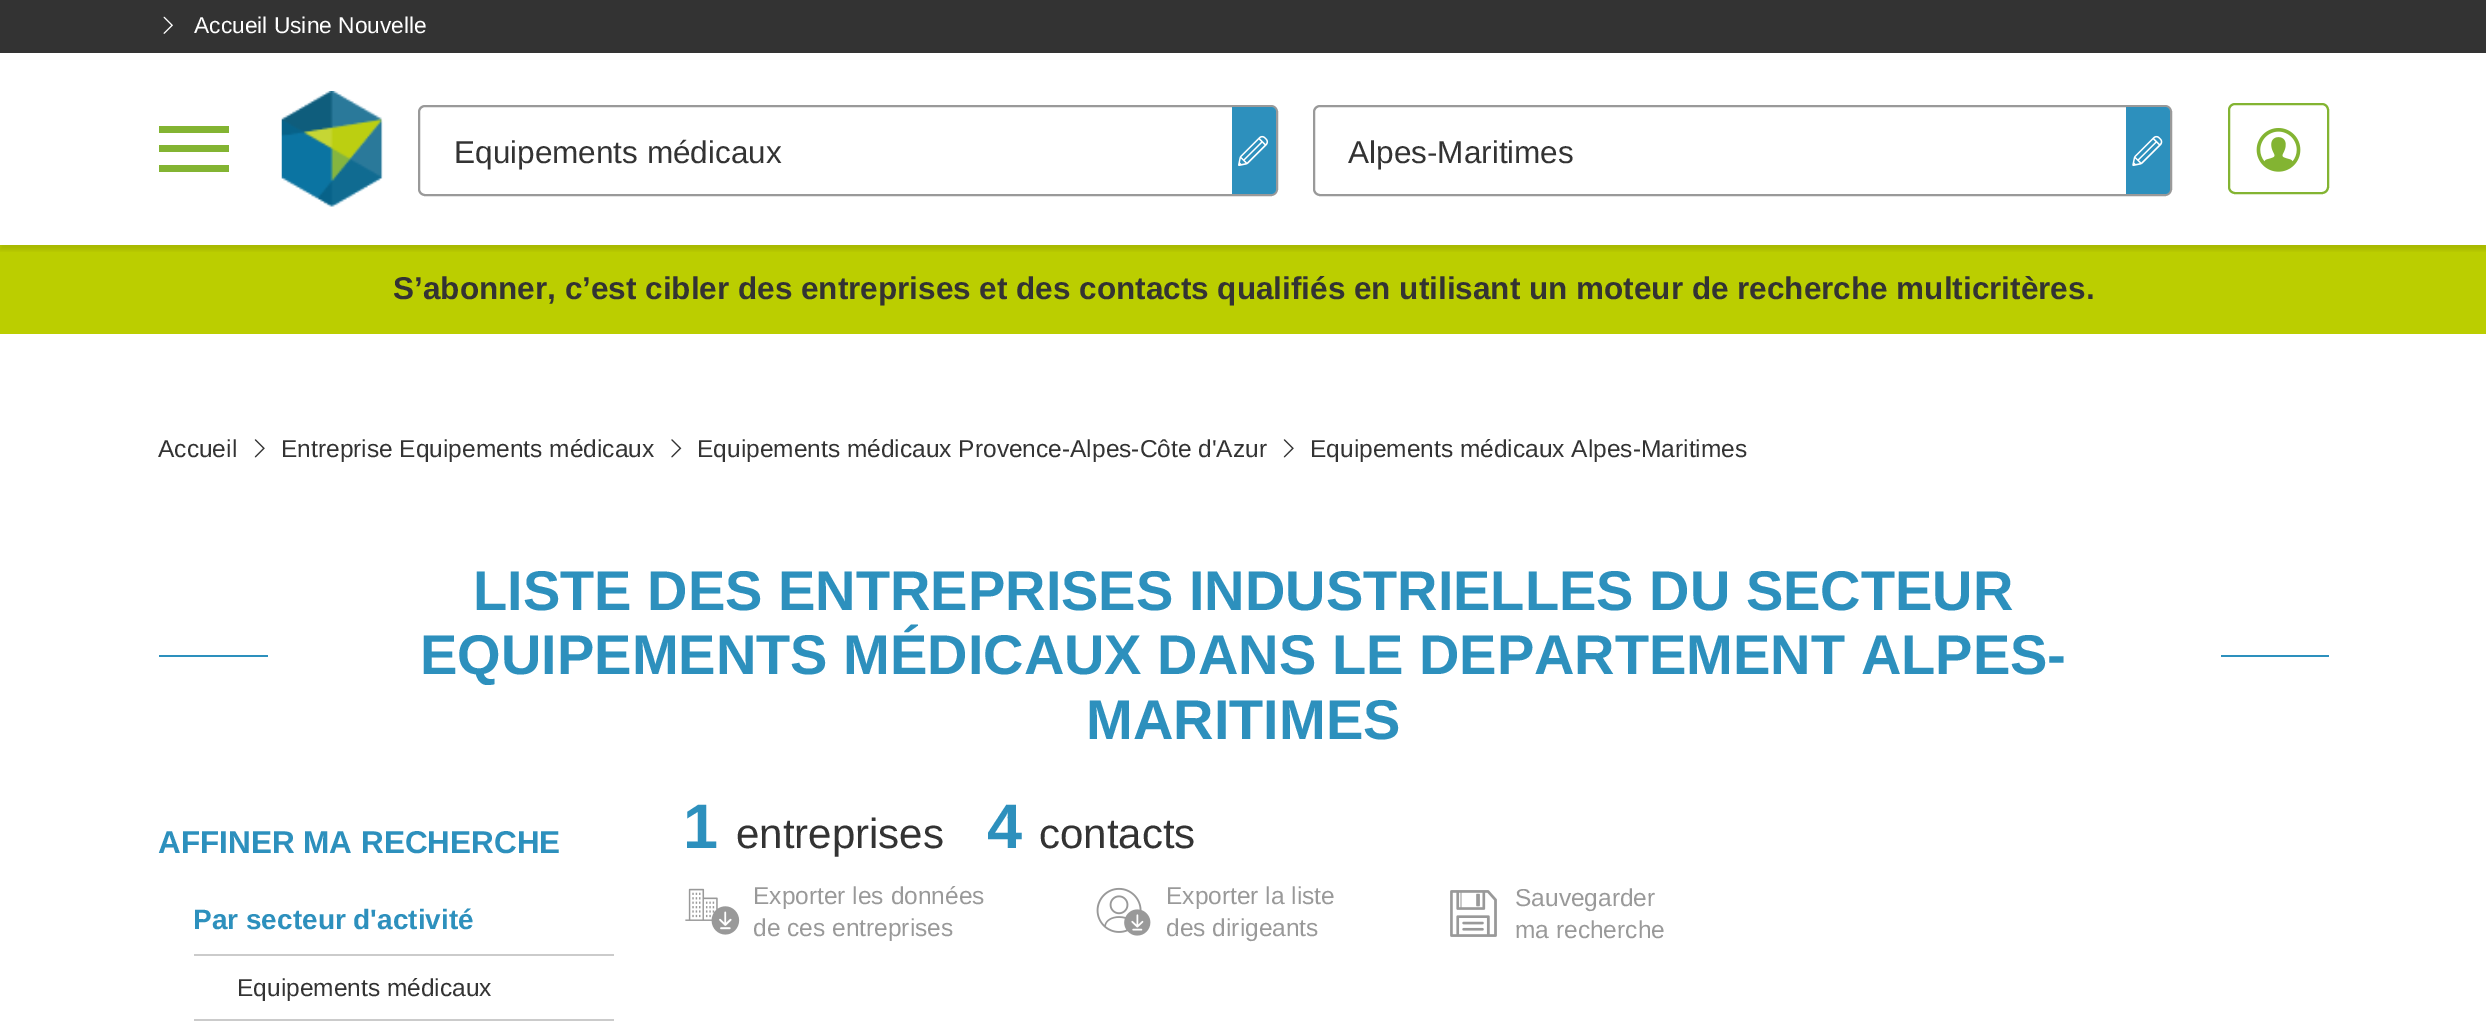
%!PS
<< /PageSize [2486 1029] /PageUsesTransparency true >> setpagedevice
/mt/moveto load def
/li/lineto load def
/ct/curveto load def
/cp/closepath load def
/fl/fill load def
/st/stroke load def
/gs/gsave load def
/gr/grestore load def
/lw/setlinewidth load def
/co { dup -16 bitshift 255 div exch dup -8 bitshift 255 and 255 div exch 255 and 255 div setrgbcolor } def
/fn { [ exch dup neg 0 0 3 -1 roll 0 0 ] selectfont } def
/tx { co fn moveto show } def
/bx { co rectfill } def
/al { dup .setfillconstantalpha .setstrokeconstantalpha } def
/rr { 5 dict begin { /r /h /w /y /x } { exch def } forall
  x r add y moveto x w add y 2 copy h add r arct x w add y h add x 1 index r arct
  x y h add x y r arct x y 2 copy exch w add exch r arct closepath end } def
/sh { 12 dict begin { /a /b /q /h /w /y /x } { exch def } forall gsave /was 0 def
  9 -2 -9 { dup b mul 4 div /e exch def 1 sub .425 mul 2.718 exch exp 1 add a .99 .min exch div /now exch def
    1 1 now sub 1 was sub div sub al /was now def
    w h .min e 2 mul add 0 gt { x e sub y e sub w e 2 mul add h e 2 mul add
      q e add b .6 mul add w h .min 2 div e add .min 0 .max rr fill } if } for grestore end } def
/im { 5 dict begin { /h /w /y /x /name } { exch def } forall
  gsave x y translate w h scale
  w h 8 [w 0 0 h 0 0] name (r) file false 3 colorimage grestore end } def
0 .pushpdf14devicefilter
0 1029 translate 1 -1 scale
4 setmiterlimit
0 0 2486 1029 16#FFFFFF bx
0 0 2486 53 16#333333 bx
(media/1.raw) 163 16 10 18 im
0 245 2486 89 16#BBCE00 bx
gs
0 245 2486 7 rectclip
16#000000 co
0 58 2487 192 0 2 .1 sh
gr
159 126 70 7 16#83B432 bx
159 145 70 7 16#83B432 bx
159 165 70 7 16#83B432 bx
(media/2.raw) 281 91 102 116 im
16#999999 co
2 lw
419 106 858 89 6 rr st
16#2D90BD co
1232 107 mt 1271 107 li 1274 107 1276 109 1276 112 ct 1276 189 li 1276 192 1274 194 1271 194 ct 1232 194 li cp fl
(media/3.raw) 1238 135 31 31 im
16#999999 co
1314 106 857 89 6 rr st
16#2D90BD co
2126 107 mt 2165 107 li 2168 107 2170 109 2170 112 ct 2170 189 li 2170 192 2168 194 2165 194 ct 2126 194 li cp fl
(media/4.raw) 2132 135 31 32 im
16#83B432 co
2229 104 99 89 6 rr st
(media/5.raw) 2256 128 45 44 im
(media/6.raw) 254 439 11 19 im
(media/7.raw) 671 439 11 19 im
(media/6.raw) 1283 439 11 19 im
159 655 109 2 16#2D90BD bx
2221 655 108 2 16#2D90BD bx
194 954 420 2 16#CBCBCB bx
194 1019 420 2 16#CBCBCB bx
(media/8.raw) 685 888 55 47 im
(media/9.raw) 1096 887 55 49 im
(media/10.raw) 1450 890 47 47 im
(Accueil Usine Nouvelle) 194 33 /LiberationSans-Regular 22.75 16#FFFFFF tx
(Equipements médicaux) 454 163 /LiberationSans-Regular 31.5 16#333333 tx
(Alpes-Maritimes) 1348 163 /LiberationSans-Regular 31.5 16#333333 tx
(S’abonner, c’est cibler des entreprises et des contacts qualifiés en utilisant un moteur de recherche multicritères.) 393 299 /LiberationSans-Bold 31.5 16#333333 tx
(Accueil) 158 457 /LiberationSans-Regular 24.5 16#333333 tx
(Entreprise Equipements médicaux) 281 457 /LiberationSans-Regular 24.5 16#333333 tx
(Equipements médicaux Provence-Alpes-Côte d'Azur) 697 457 /LiberationSans-Regular 24.5 16#333333 tx
(Equipements médicaux Alpes-Maritimes) 1310 457 /LiberationSans-Regular 24.5 16#333333 tx
(LISTE DES ENTREPRISES INDUSTRIELLES DU SECTEUR) 473 610 /LiberationSans-Bold 56 16#2D90BD tx
(EQUIPEMENTS MÉDICAUX DANS LE DEPARTEMENT ALPES-) 420 674 /LiberationSans-Bold 56 16#2D90BD tx
(MARITIMES) 1086 739 /LiberationSans-Bold 56 16#2D90BD tx
(AFFINER MA RECHERCHE) 158 853 /LiberationSans-Bold 31.5 16#2D90BD tx
(Par secteur d'activité) 193 929 /LiberationSans-Bold 28 16#2D90BD tx
(Equipements médicaux) 237 996 /LiberationSans-Regular 24.5 16#333333 tx
(1) 683 848 /LiberationSans-Bold 63 16#2D90BD tx
(entreprises) 736 848 /LiberationSans-Regular 42 16#333333 tx
(4) 987 848 /LiberationSans-Bold 63 16#2D90BD tx
(contacts) 1039 848 /LiberationSans-Regular 42 16#333333 tx
(Exporter les données) 753 904 /LiberationSans-Regular 24.5 16#999999 tx
(de ces entreprises) 753 936 /LiberationSans-Regular 24.5 16#999999 tx
(Exporter la liste) 1166 904 /LiberationSans-Regular 24.5 16#999999 tx
(des dirigeants) 1166 936 /LiberationSans-Regular 24.5 16#999999 tx
(Sauvegarder) 1515 906 /LiberationSans-Regular 24.5 16#999999 tx
(ma recherche) 1515 938 /LiberationSans-Regular 24.5 16#999999 tx
.poppdf14devicefilter showpage
